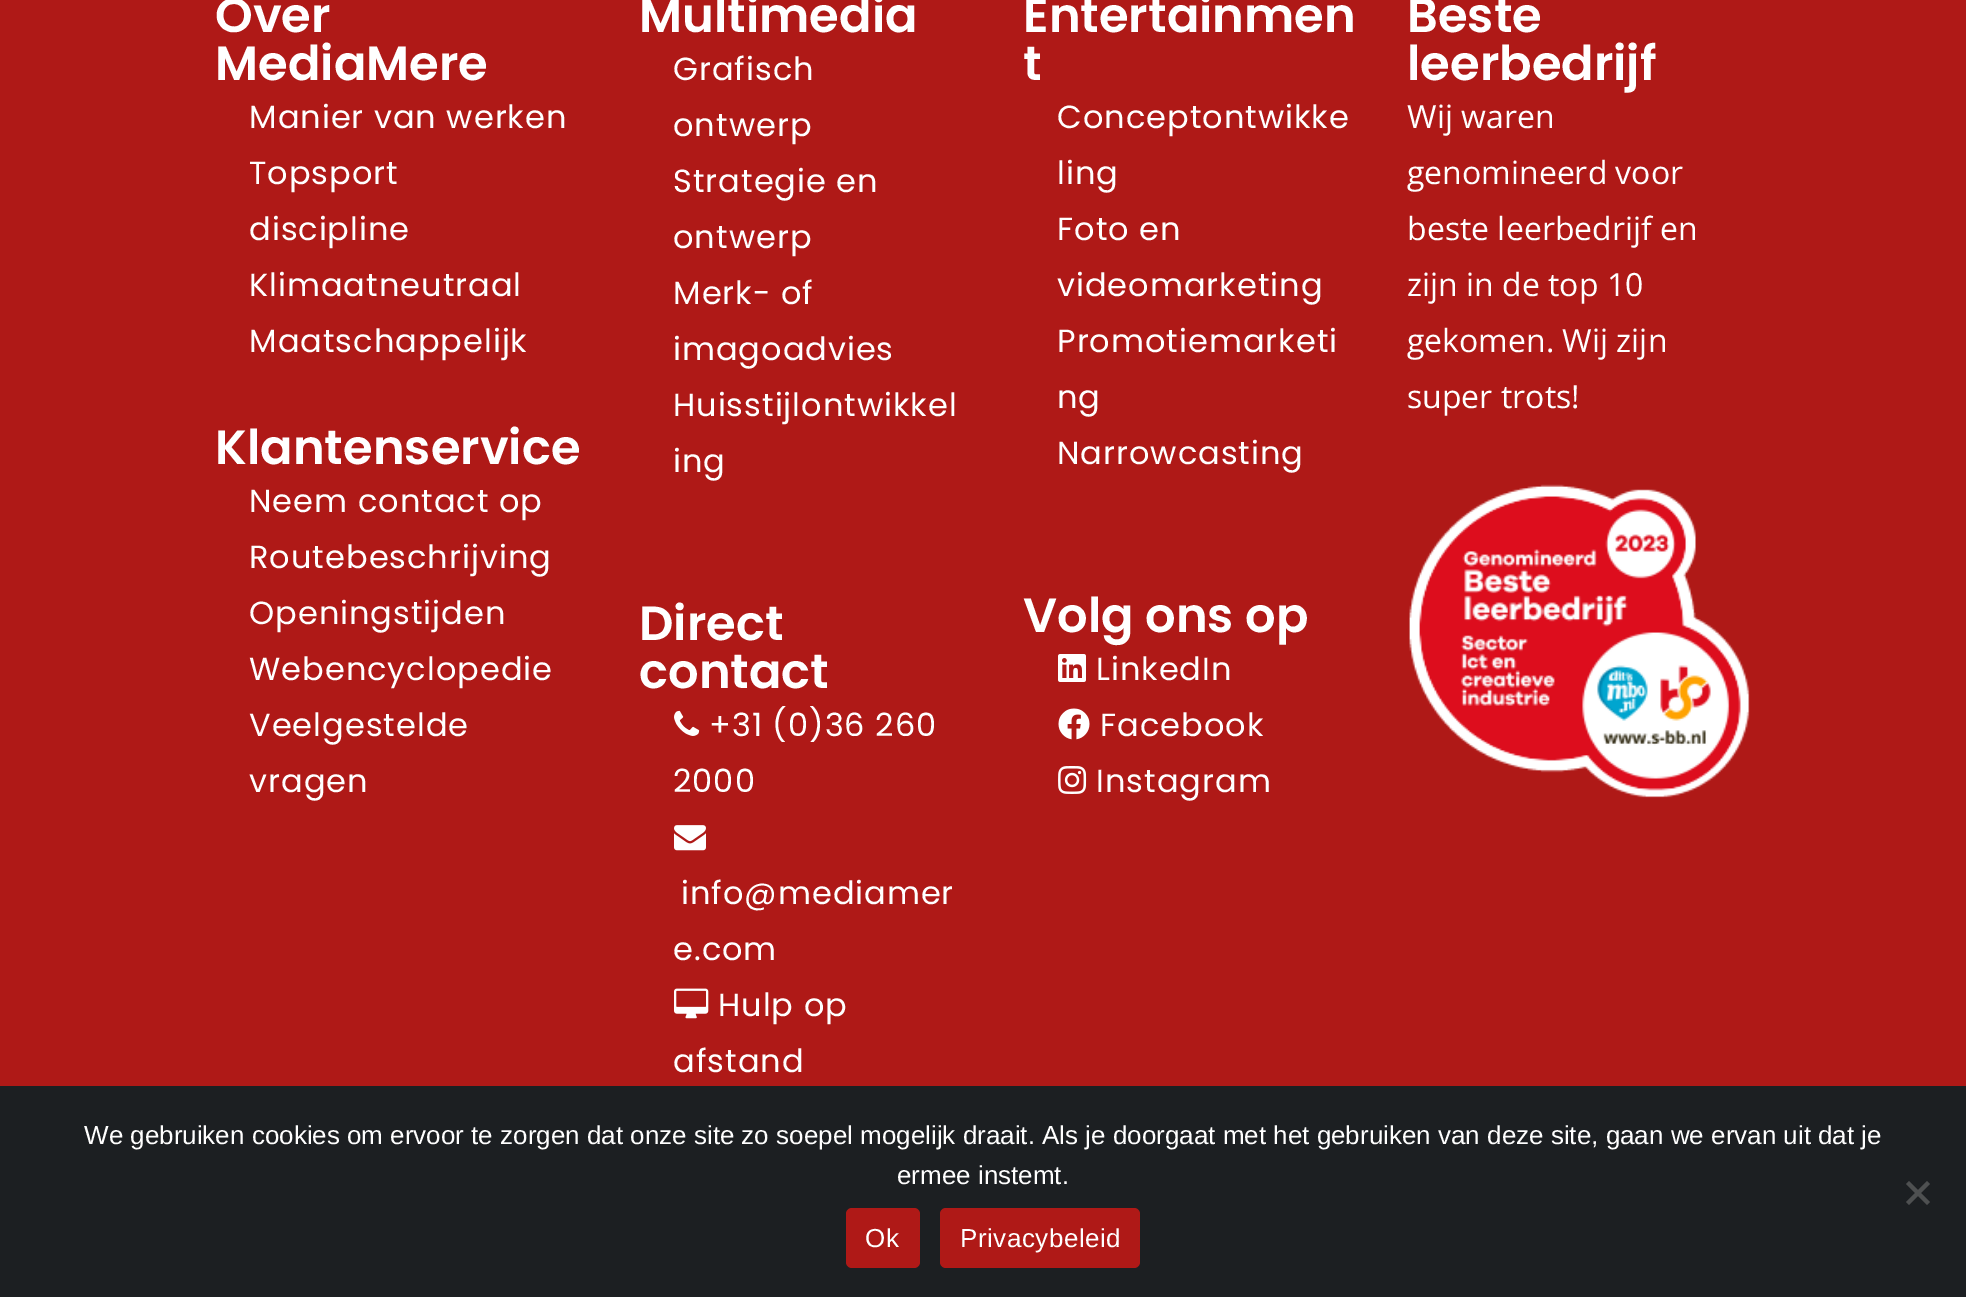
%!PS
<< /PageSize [1966 1297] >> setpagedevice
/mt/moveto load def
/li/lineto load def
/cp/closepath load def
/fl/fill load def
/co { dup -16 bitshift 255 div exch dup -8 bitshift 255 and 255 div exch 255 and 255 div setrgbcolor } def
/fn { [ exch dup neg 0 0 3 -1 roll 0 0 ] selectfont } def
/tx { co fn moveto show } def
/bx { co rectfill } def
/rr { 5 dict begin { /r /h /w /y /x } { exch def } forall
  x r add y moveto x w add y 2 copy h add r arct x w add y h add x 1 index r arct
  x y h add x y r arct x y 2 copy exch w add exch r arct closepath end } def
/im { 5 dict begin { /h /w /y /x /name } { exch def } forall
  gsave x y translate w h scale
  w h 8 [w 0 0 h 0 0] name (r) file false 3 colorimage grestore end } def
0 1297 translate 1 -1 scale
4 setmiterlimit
0 0 1966 1297 16#AF1917 bx
(media/1.raw) 674 710 26 26 im
(media/2.raw) 674 825 32 26 im
(media/3.raw) 674 988 35 31 im
(media/4.raw) 1058 654 28 28 im
(media/5.raw) 1058 708 32 32 im
(media/6.raw) 1058 766 29 28 im
(media/7.raw) 1409 484 341 314 im
0 1086 1966 211 16#1C1F22 bx
16#4E5051 co
1927 1181 mt 1930 1184 li 1909 1205 li 1906 1202 li cp fl
1906 1184 mt 1909 1181 li 1930 1202 li 1927 1205 li cp fl
16#AF1917 co
846 1208 74 60 6 rr fl
940 1208 200 60 6 rr fl
(Over) 215 32 /Poppins-SemiBold 48 16#FFFFFF tx
(MediaMere) 215 80 /Poppins-SemiBold 48 16#FFFFFF tx
/Poppins-Regular 32 fn
249 128 mt 1 0 (Manier van werken) ashow
249 184 mt 1 0 (Topsport) ashow
249 240 mt 1 0 (discipline) ashow
249 296 mt 1 0 (Klimaatneutraal) ashow
249 352 mt 1 0 (Maatschappelijk) ashow
(Klantenservice) 215 464 /Poppins-SemiBold 48 16#FFFFFF tx
/Poppins-Regular 32 fn
249 512 mt 1 0 (Neem contact op) ashow
249 568 mt 1 0 (Routebeschrijving) ashow
249 624 mt 1 0 (Openingstijden) ashow
249 680 mt 1 0 (Webencyclopedie) ashow
249 736 mt 1 0 (Veelgestelde) ashow
249 792 mt 1 0 (vragen) ashow
(Multimedia) 639 32 /Poppins-SemiBold 48 16#FFFFFF tx
/Poppins-Regular 32 fn
673 80 mt 1 0 (Grafisch) ashow
673 136 mt 1 0 (ontwerp) ashow
673 192 mt 1 0 (Strategie en) ashow
673 248 mt 1 0 (ontwerp) ashow
673 304 mt 1 0 (Merk- of) ashow
673 360 mt 1 0 (imagoadvies) ashow
673 416 mt 1 0 (Huisstijlontwikkel) ashow
673 472 mt 1 0 (ing) ashow
(Direct) 639 640 /Poppins-SemiBold 48 16#FFFFFF tx
(contact) 639 688 /Poppins-SemiBold 48 16#FFFFFF tx
/Poppins-Regular 32 fn
709 736 mt 1 0 (+31 \(0\)36 260) ashow
673 792 mt 1 0 (2000) ashow
681 904 mt 1 0 (info@mediamer) ashow
673 960 mt 1 0 (e.com) ashow
718 1016 mt 1 0 (Hulp op) ashow
673 1072 mt 1 0 (afstand) ashow
(Entertainmen) 1023 32 /Poppins-SemiBold 48 16#FFFFFF tx
(t) 1023 80 /Poppins-SemiBold 48 16#FFFFFF tx
/Poppins-Regular 32 fn
1057 128 mt 1 0 (Conceptontwikke) ashow
1057 184 mt 1 0 (ling) ashow
1057 240 mt 1 0 (Foto en) ashow
1057 296 mt 1 0 (videomarketing) ashow
1057 352 mt 1 0 (Promotiemarketi) ashow
1057 408 mt 1 0 (ng) ashow
1057 464 mt 1 0 (Narrowcasting) ashow
(Volg ons op) 1023 632 /Poppins-SemiBold 48 16#FFFFFF tx
/Poppins-Regular 32 fn
1096 680 mt 1 0 (LinkedIn) ashow
1100 736 mt 1 0 (Facebook) ashow
1096 792 mt 1 0 (Instagram) ashow
(Beste) 1407 32 /Poppins-SemiBold 48 16#FFFFFF tx
(leerbedrijf) 1407 80 /Poppins-SemiBold 48 16#FFFFFF tx
(Wij waren) 1407 128 /OpenSans-Regular 32 16#FFFFFF tx
(genomineerd voor) 1407 184 /OpenSans-Regular 32 16#FFFFFF tx
(beste leerbedrijf en) 1407 240 /OpenSans-Regular 32 16#FFFFFF tx
(zijn in de top 10) 1407 296 /OpenSans-Regular 32 16#FFFFFF tx
(gekomen. Wij zijn) 1407 352 /OpenSans-Regular 32 16#FFFFFF tx
(super trots!) 1407 408 /OpenSans-Regular 32 16#FFFFFF tx
(We gebruiken cookies om ervoor te zorgen dat onze site zo soepel mogelijk draait. Als je doorgaat met het gebruiken van deze site, gaan we ervan uit dat je) 84 1144 /LiberationSans-Regular 26 16#FFFFFF tx
(ermee instemt.) 897 1184 /LiberationSans-Regular 26 16#FFFFFF tx
865 1247 mt .5 0 (Ok) ashow
960 1247 mt .5 0 (Privacybeleid) ashow
showpage
